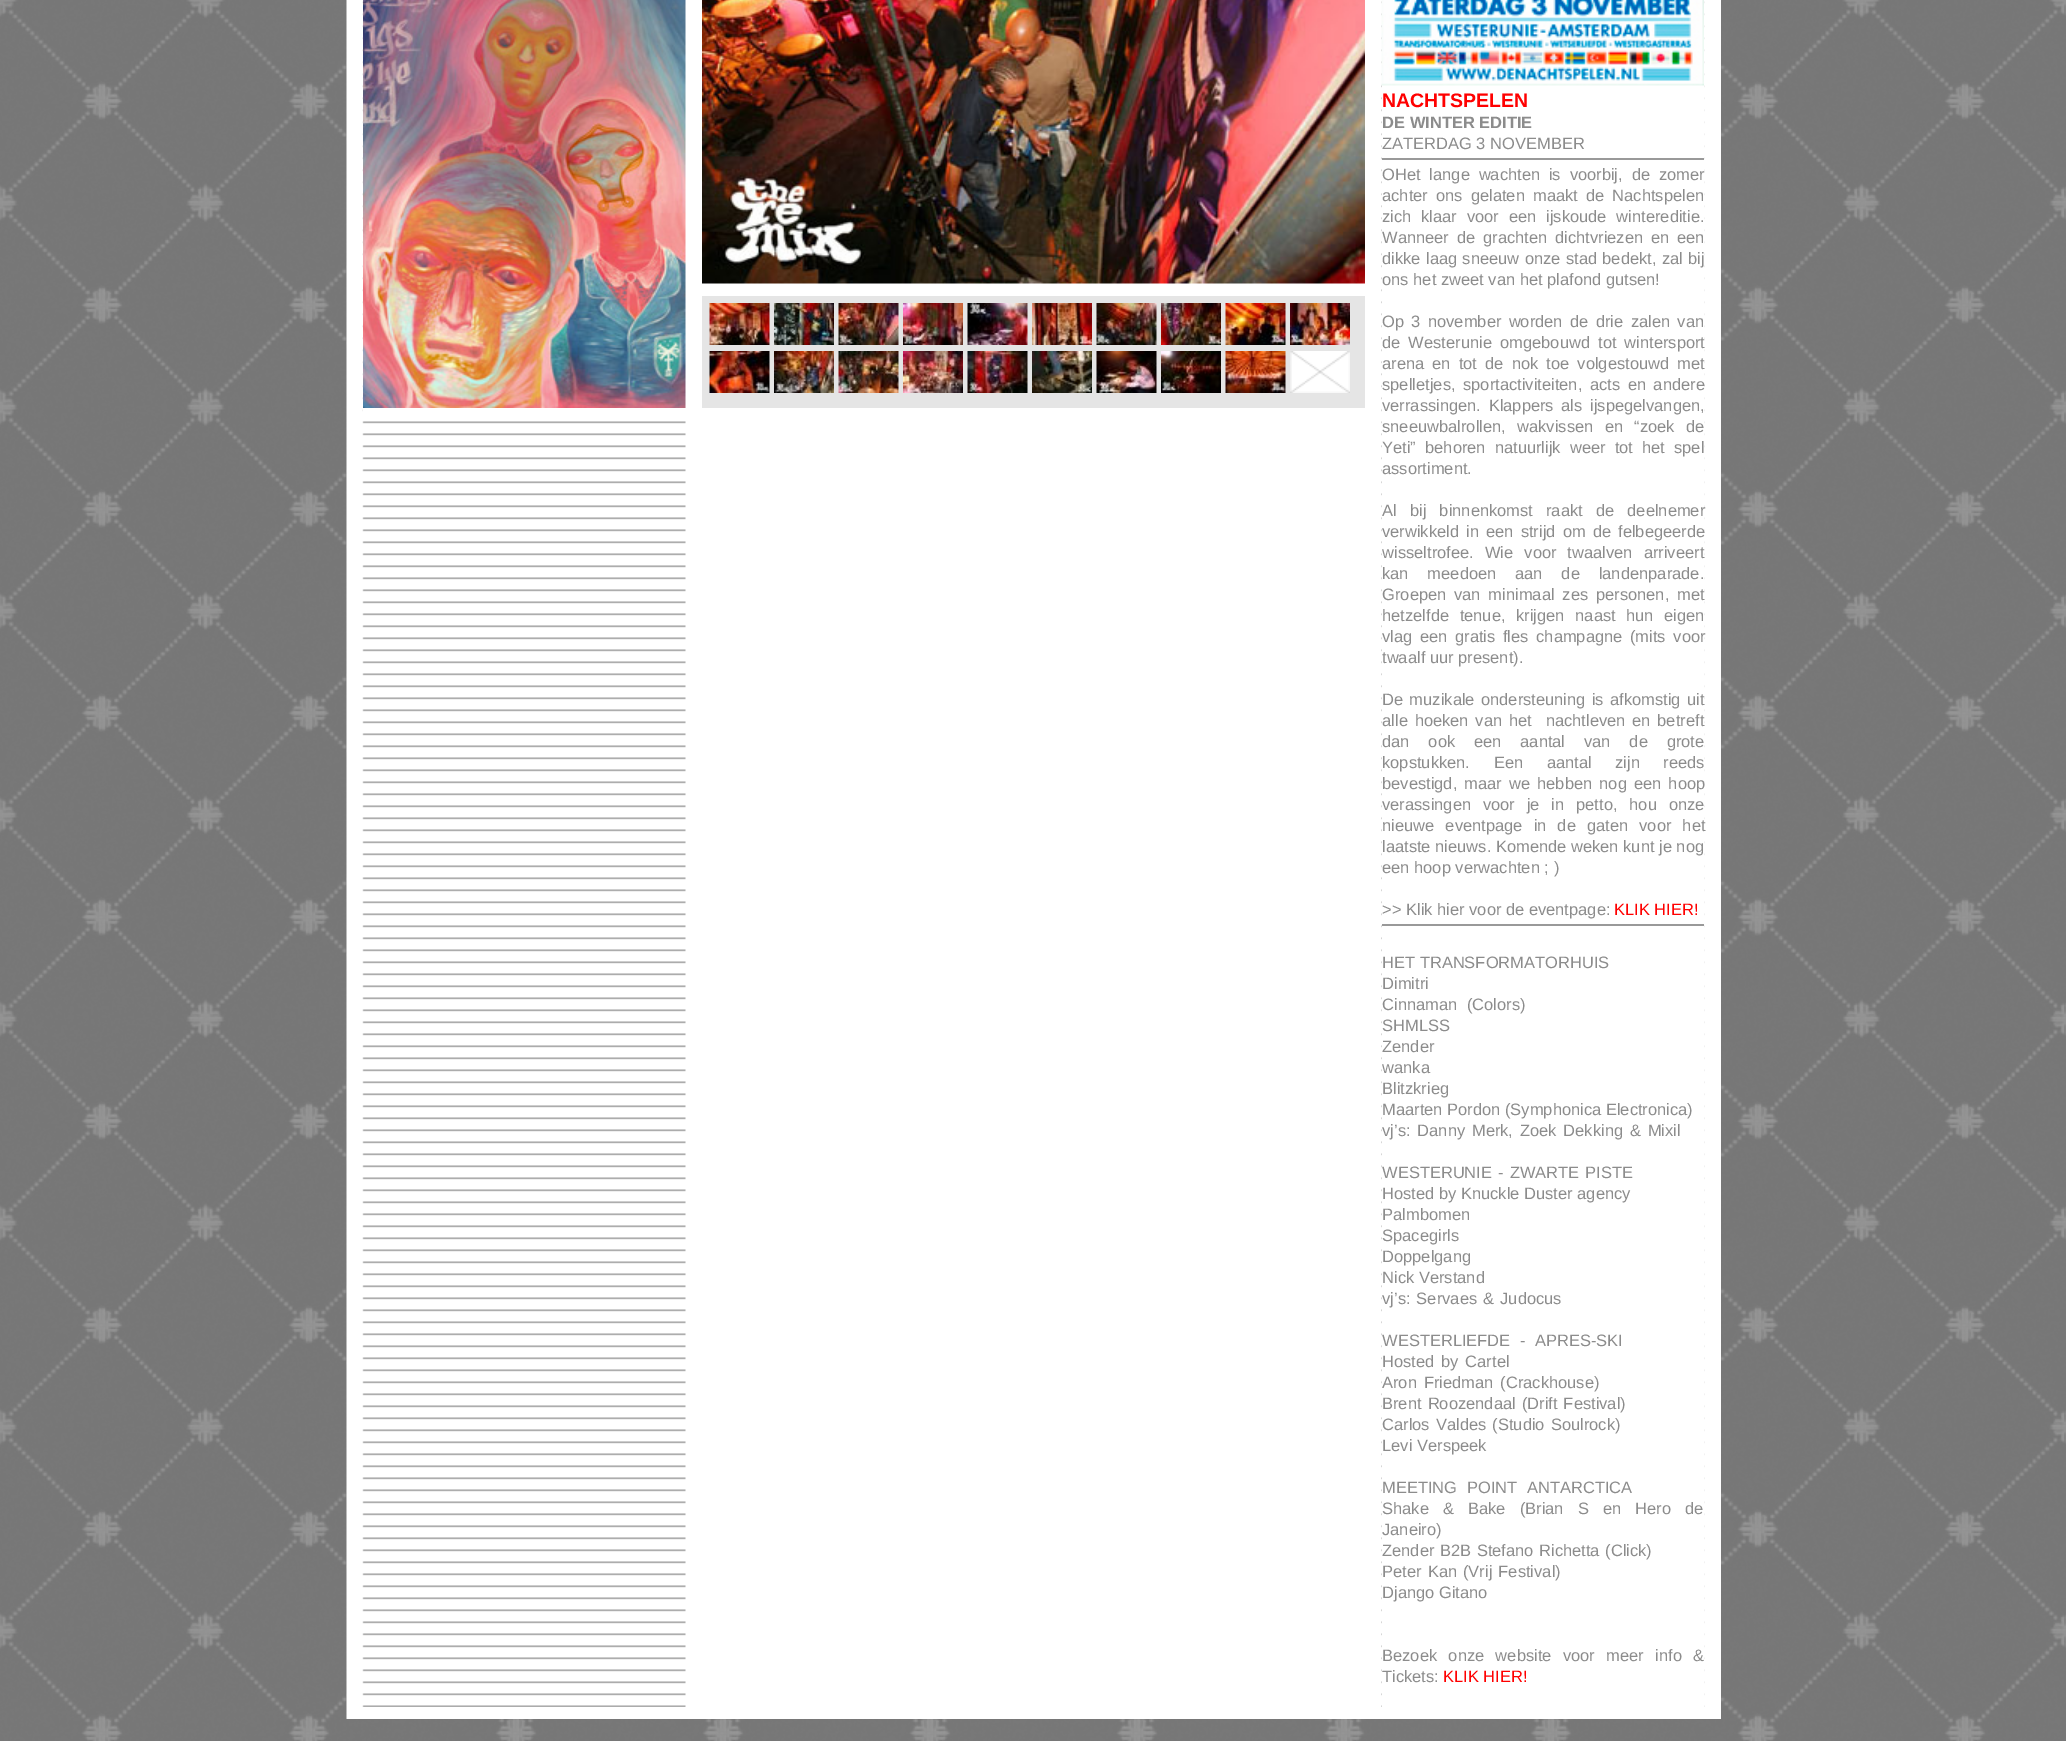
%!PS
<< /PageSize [2066 1741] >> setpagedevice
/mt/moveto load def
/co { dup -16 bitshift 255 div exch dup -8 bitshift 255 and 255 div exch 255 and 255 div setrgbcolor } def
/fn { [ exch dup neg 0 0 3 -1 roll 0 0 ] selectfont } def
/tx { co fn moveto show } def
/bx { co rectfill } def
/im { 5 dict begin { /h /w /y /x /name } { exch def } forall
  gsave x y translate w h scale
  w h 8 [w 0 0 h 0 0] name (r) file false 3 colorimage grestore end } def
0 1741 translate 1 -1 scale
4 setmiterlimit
0 0 2066 1741 16#FFFFFF bx
(media/1.raw) 0 0 2066 1741 im
1705 0 16 1707 16#FFFFFF bx
(media/2.raw) 346 0 1359 1719 im
363 1 323 411 16#FFFFFF bx
(media/3.raw) 363 0 323 408 im
(media/4.raw) 702 0 663 284 im
702 296 663 112 16#E5E5E5 bx
(media/5.raw) 709 303 61 42 im
(media/6.raw) 774 303 60 42 im
(media/7.raw) 838 303 61 42 im
(media/8.raw) 903 303 60 42 im
(media/9.raw) 967 303 61 42 im
(media/10.raw) 1032 303 60 42 im
(media/11.raw) 1096 303 61 42 im
(media/12.raw) 1161 303 60 42 im
(media/13.raw) 1225 303 61 42 im
(media/14.raw) 1290 303 60 42 im
(media/15.raw) 709 351 61 42 im
(media/16.raw) 774 351 60 42 im
(media/17.raw) 838 351 61 42 im
(media/18.raw) 903 351 60 42 im
(media/19.raw) 967 351 61 42 im
(media/20.raw) 1032 351 60 42 im
(media/21.raw) 1096 351 61 42 im
(media/22.raw) 1161 351 60 42 im
(media/23.raw) 1225 351 61 42 im
(media/24.raw) 1290 351 60 42 im
1382 85 322 1622 16#FFFFFF bx
(media/25.raw) 1381 0 323 86 im
1382 158 322 2 16#999999 bx
1382 924 322 2 16#999999 bx
362 1707 1359 12 16#FFFFFF bx
(NACHTSPELEN) 1382 107 /LiberationSans-Bold 19.5 16#FF0000 tx
(DE WINTER EDITIE) 1382 128 /LiberationSans-Bold 16.5 16#8C8C8C tx
(ZATERDAG 3 NOVEMBER) 1382 149 /LiberationSans-Regular 16.5 16#8C8C8C tx
1382 180 mt 4.25 0 32 (OHet lange wachten is voorbij, de zomer) widthshow
1382 201 mt 3.5 0 32 (achter ons gelaten maakt de Nachtspelen) widthshow
1382 222 mt 5.25 0 32 (zich klaar voor een ijskoude wintereditie.) widthshow
1382 243 mt 3.25 0 32 (Wanneer de grachten dichtvriezen en een) widthshow
1382 264 mt .75 0 32 (dikke laag sneeuw onze stad bedekt, zal bij) widthshow
(ons het zweet van het plafond gutsen!) 1382 285 /LiberationSans-Regular 16.5 16#8C8C8C tx
1382 327 mt 2.75 0 32 (Op 3 november worden de drie zalen van) widthshow
1382 348 mt 3.5 0 32 (de Westerunie omgebouwd tot wintersport) widthshow
1382 369 mt 3.5 0 32 (arena en tot de nok toe volgestouwd met) widthshow
1382 390 mt 3 0 32 (spelletjes, sportactiviteiten, acts en andere) widthshow
1382 411 mt 3 0 32 (verrassingen. Klappers als ijspegelvangen,) widthshow
1382 432 mt 6.75 0 32 (sneeuwbalrollen, wakvissen en “zoek de) widthshow
1382 453 mt 4.5 0 32 (Yeti” behoren natuurlijk weer tot het spel) widthshow
(assortiment.) 1382 474 /LiberationSans-Regular 16.5 16#8C8C8C tx
1382 516 mt 8.5 0 32 (Al bij binnenkomst raakt de deelnemer) widthshow
1382 537 mt 2.5 0 32 (verwikkeld in een strijd om de felbegeerde) widthshow
1382 558 mt 6.5 0 32 (wisseltrofee. Wie voor twaalven arriveert) widthshow
1382 579 mt 14.25 0 32 (kan meedoen aan de landenparade.) widthshow
1382 600 mt 3.25 0 32 (Groepen van minimaal zes personen, met) widthshow
1382 621 mt 6 0 32 (hetzelfde tenue, krijgen naast hun eigen) widthshow
1382 642 mt 3 0 32 (vlag een gratis fles champagne \(mits voor) widthshow
(twaalf uur present\).) 1382 663 /LiberationSans-Regular 16.5 16#8C8C8C tx
1382 705 mt 1.75 0 32 (De muzikale ondersteuning is afkomstig uit) widthshow
1382 726 mt 2.25 0 32 (alle hoeken van het  nachtleven en betreft) widthshow
1382 747 mt 14.25 0 32 (dan ook een aantal van de grote) widthshow
1382 768 mt 19 0 32 (kopstukken. Een aantal zijn reeds) widthshow
1382 789 mt 2.5 0 32 (bevestigd, maar we hebben nog een hoop) widthshow
1382 810 mt 7.25 0 32 (verassingen voor je in petto, hou onze) widthshow
1382 831 mt 6.5 0 32 (nieuwe eventpage in de gaten voor het) widthshow
(laatste nieuws. Komende weken kunt je nog) 1382 852 /LiberationSans-Regular 16.5 16#8C8C8C tx
(een hoop verwachten ; \)) 1382 873 /LiberationSans-Regular 16.5 16#8C8C8C tx
(>> Klik hier voor de eventpage:) 1382 915 /LiberationSans-Regular 16.5 16#8C8C8C tx
(KLIK HIER!) 1614 915 /LiberationSans-Regular 16.5 16#FF0000 tx
(HET TRANSFORMATORHUIS) 1382 968 /LiberationSans-Regular 16.5 16#8C8C8C tx
(Dimitri) 1382 989 /LiberationSans-Regular 16.5 16#8C8C8C tx
1382 1010 mt 5 0 32 (Cinnaman \(Colors\)) widthshow
(SHMLSS) 1382 1031 /LiberationSans-Regular 16.5 16#8C8C8C tx
(Zender) 1382 1052 /LiberationSans-Regular 16.5 16#8C8C8C tx
(wanka) 1382 1073 /LiberationSans-Regular 16.5 16#8C8C8C tx
(Blitzkrieg) 1382 1094 /LiberationSans-Regular 16.5 16#8C8C8C tx
(Maarten Pordon \(Symphonica Electronica\)) 1382 1115 /LiberationSans-Regular 16.5 16#8C8C8C tx
1382 1136 mt 2.25 0 32 (vj’s: Danny Merk, Zoek Dekking & Mixil) widthshow
1382 1178 mt 1.5 0 32 (WESTERUNIE - ZWARTE PISTE) widthshow
(Hosted by Knuckle Duster agency) 1382 1199 /LiberationSans-Regular 16.5 16#8C8C8C tx
(Palmbomen) 1382 1220 /LiberationSans-Regular 16.5 16#8C8C8C tx
(Spacegirls) 1382 1241 /LiberationSans-Regular 16.5 16#8C8C8C tx
(Doppelgang) 1382 1262 /LiberationSans-Regular 16.5 16#8C8C8C tx
(Nick Verstand) 1382 1283 /LiberationSans-Regular 16.5 16#8C8C8C tx
1382 1304 mt 1.5 0 32 (vj’s: Servaes & Judocus) widthshow
1382 1346 mt 5 0 32 (WESTERLIEFDE - APRES-SKI) widthshow
1382 1367 mt 2.25 0 32 (Hosted by Cartel) widthshow
1382 1388 mt 2.25 0 32 (Aron Friedman \(Crackhouse\)) widthshow
1382 1409 mt 1.5 0 32 (Brent Roozendaal \(Drift Festival\)) widthshow
1382 1430 mt 1.5 0 32 (Carlos Valdes \(Studio Soulrock\)) widthshow
(Levi Verspeek) 1382 1451 /LiberationSans-Regular 16.5 16#8C8C8C tx
1382 1493 mt 5 0 32 (MEETING POINT ANTARCTICA) widthshow
1382 1514 mt 9.5 0 32 (Shake & Bake \(Brian S en Hero de) widthshow
(Janeiro\)) 1382 1535 /LiberationSans-Regular 16.5 16#8C8C8C tx
1382 1556 mt 1 0 32 (Zender B2B Stefano Richetta \(Click\)) widthshow
1382 1577 mt 1.5 0 32 (Peter Kan \(Vrij Festival\)) widthshow
(Django Gitano) 1382 1598 /LiberationSans-Regular 16.5 16#8C8C8C tx
1382 1661 mt 6.75 0 32 (Bezoek onze website voor meer info &) widthshow
(Tickets:) 1382 1682 /LiberationSans-Regular 16.5 16#8C8C8C tx
(KLIK HIER!) 1443 1682 /LiberationSans-Regular 16.5 16#FF0000 tx
showpage
